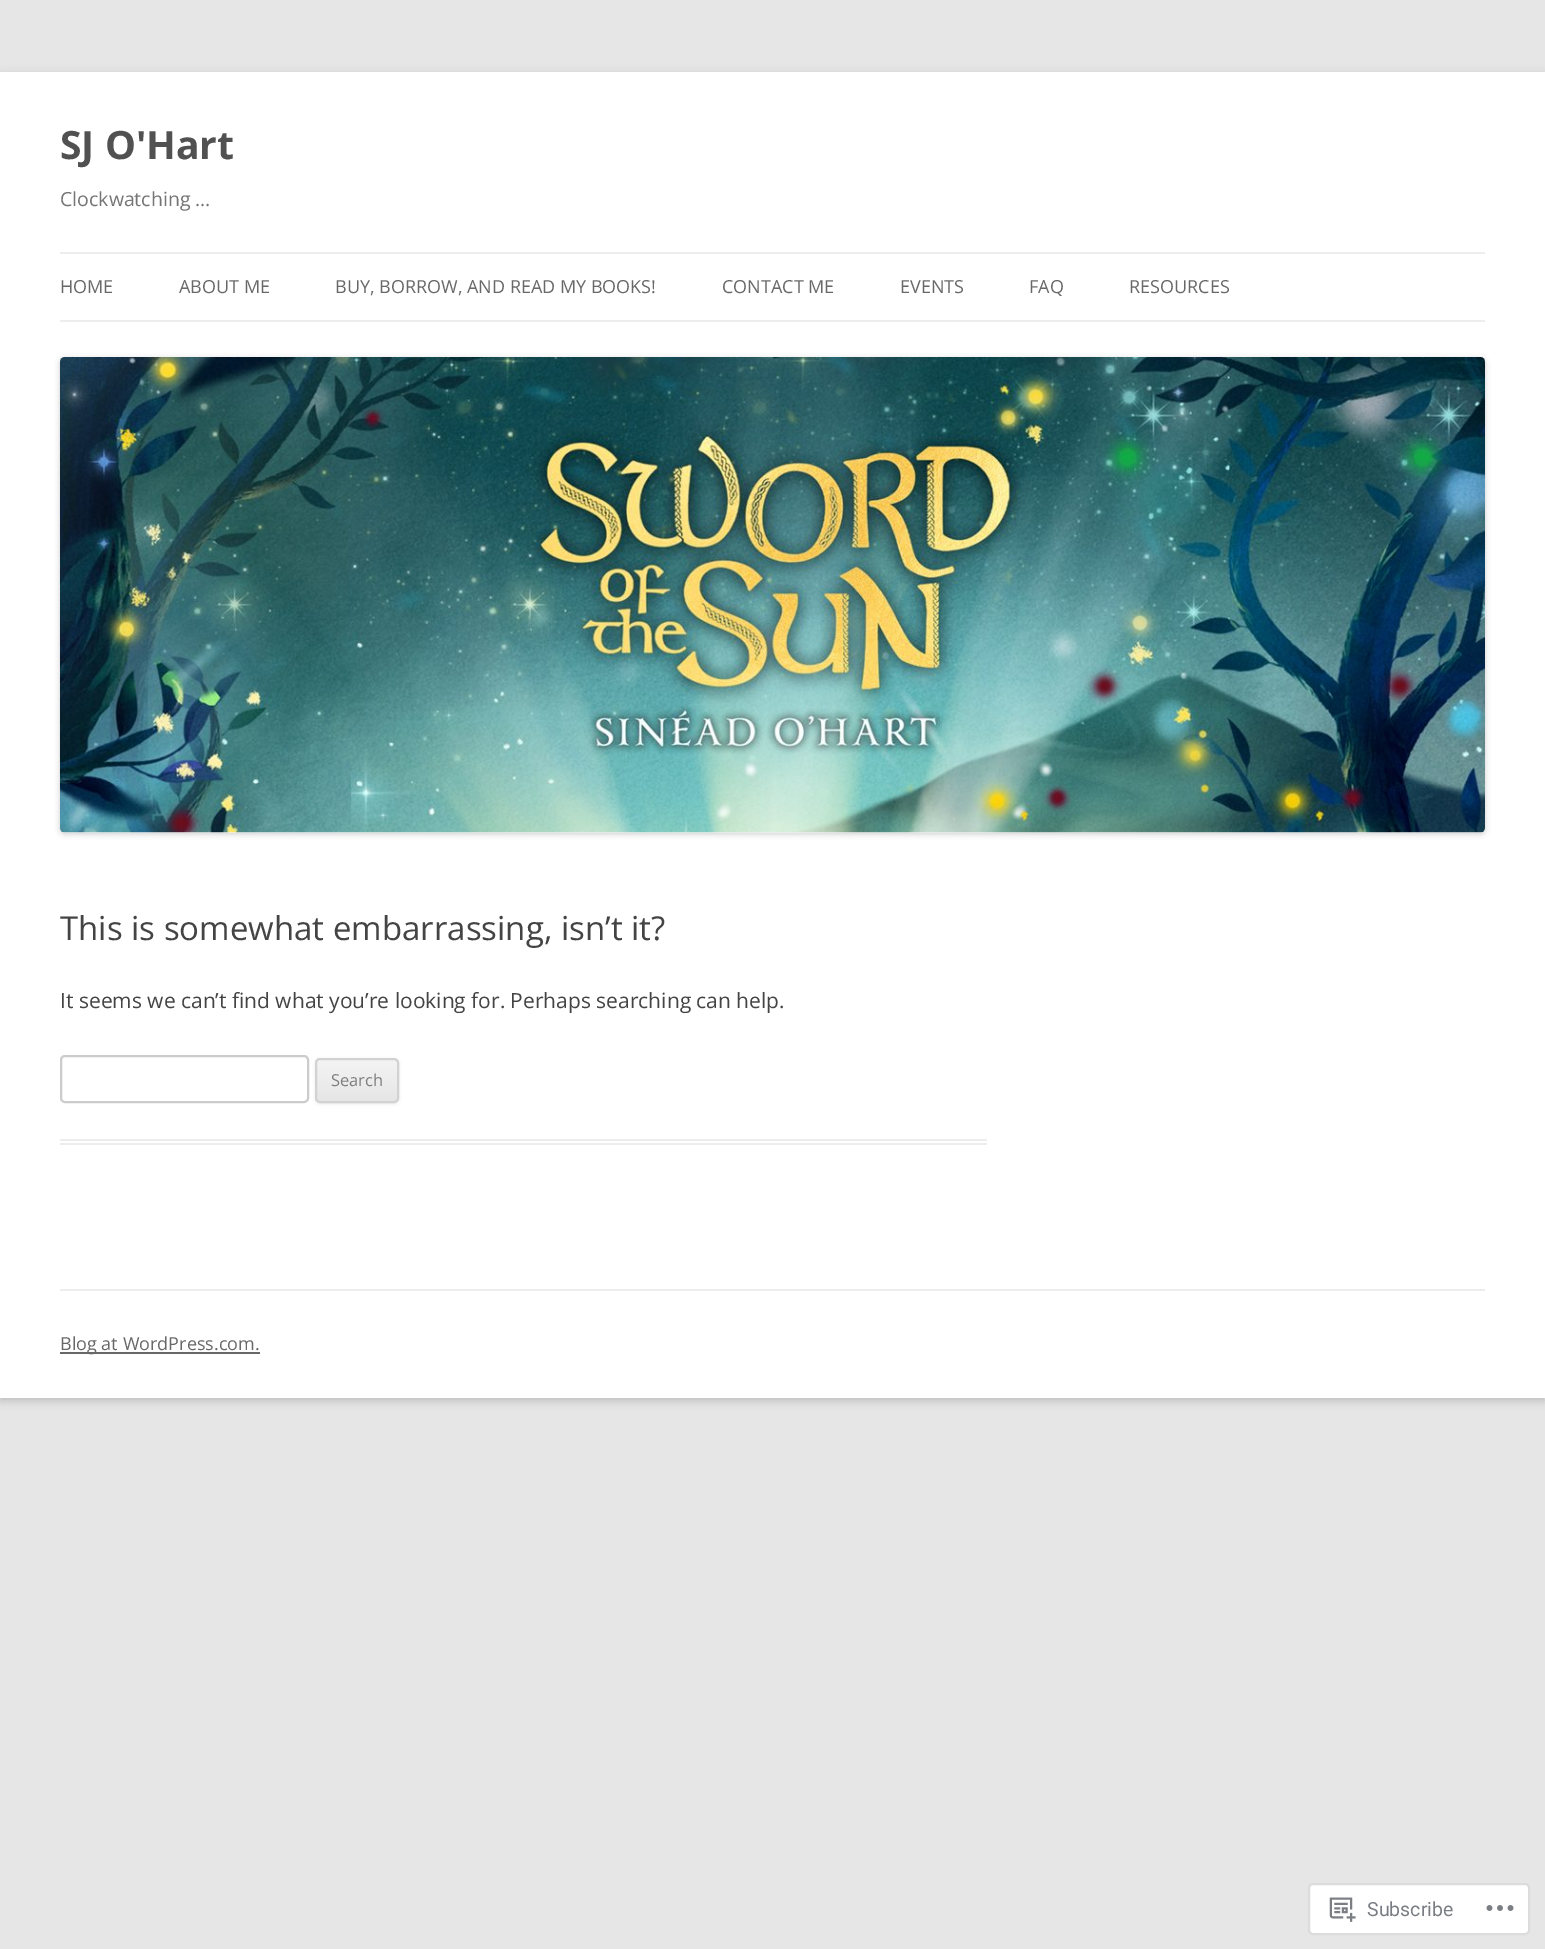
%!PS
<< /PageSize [1545 1949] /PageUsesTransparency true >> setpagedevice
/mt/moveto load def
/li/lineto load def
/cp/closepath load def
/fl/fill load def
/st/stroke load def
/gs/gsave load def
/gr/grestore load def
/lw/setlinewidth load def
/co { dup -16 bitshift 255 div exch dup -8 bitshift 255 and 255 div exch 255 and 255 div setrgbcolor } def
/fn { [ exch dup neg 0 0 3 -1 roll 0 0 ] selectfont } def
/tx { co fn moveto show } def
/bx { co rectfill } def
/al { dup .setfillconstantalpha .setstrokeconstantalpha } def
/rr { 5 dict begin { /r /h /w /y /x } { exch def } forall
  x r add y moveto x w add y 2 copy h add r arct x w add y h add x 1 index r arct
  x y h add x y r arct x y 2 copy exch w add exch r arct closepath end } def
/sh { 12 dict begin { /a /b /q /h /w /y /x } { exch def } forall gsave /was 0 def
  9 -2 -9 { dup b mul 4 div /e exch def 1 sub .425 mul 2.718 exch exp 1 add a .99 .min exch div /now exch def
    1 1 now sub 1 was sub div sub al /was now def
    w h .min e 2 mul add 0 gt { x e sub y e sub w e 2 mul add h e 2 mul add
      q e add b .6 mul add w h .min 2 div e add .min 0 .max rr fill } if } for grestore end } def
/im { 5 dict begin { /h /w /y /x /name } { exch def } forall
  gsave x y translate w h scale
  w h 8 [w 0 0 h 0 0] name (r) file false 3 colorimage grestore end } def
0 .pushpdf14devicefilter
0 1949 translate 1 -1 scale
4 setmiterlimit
0 0 1545 1949 16#E6E6E6 bx
16#646464 co
0 75 1545 1326 0 4.5 .3 sh
0 72 1545 1326 16#FFFFFF bx
60 252 1425 2 16#EDEDED bx
60 320 1425 2 16#EDEDED bx
16#000000 co
60 359 1425 475 5 3 .2 sh
(media/1.raw) 60 357 1425 476 im
60 1139 927 2 16#EDEDED bx
60 1143 927 2 16#EDEDED bx
16#CCCCCC co
2 lw
61 1056 247 46 4 rr st
16#404040 co
315 1059 84 45 5 1.5 .1 sh
gs
315 1058 84 45 5 rr clip newpath
gs 315 1059 mt 399 1059 li 399 1101 li 315 1101 li cp clip newpath
<< /ShadingType 2 /ColorSpace /DeviceRGB /Coords [357 1059 357 1101] /Extend [true true] /Function << /FunctionType 2 /Domain [0 1] /C0 [.957 .957 .957] /C1 [.902 .902 .902] /N 1 >> >> shfill gr
gr
16#D2D2D2 co
316 1059 82 43 4 rr st
60 1289 1425 2 16#EDEDED bx
60 1352 200 2 16#686868 bx
16#FFFFFF co
1309 1884 220 50 4 rr gs fl gr
16#DCDCDE co
st
(media/2.raw) 1329 1897 27 25 im
(media/3.raw) 1486 1905 28 6 im
(SJ O'Hart) 60 159 /OpenSans-Bold 39 16#515151 tx
(Clockwatching …) 60 206 /OpenSans-Regular 19.5 16#757575 tx
(HOME) 60 293 /OpenSans-Regular 18 16#686868 tx
(ABOUT ME) 179 293 /OpenSans-Regular 18 16#686868 tx
(BUY, BORROW, AND READ MY BOOKS!) 335 293 /OpenSans-Regular 18 16#686868 tx
(CONTACT ME) 722 293 /OpenSans-Regular 18 16#686868 tx
(EVENTS) 900 293 /OpenSans-Regular 18 16#686868 tx
(FAQ) 1029 293 /OpenSans-Regular 18 16#686868 tx
(RESOURCES) 1129 293 /OpenSans-Regular 18 16#686868 tx
(This is somewhat embarrassing, isn’t it?) 60 940 /OpenSans-Regular 33 16#444444 tx
(It seems we can’t find what you’re looking for. Perhaps searching can help.) 60 1008 /OpenSans-Regular 21 16#444444 tx
(Search) 331 1086 /OpenSans-Regular 16.5 16#7C7C7C tx
(Blog at WordPress.com.) 60 1350 /OpenSans-Regular 18 16#686868 tx
(Subscribe) 1367 1916 /Roboto-Regular 19.5 16#7A7E84 tx
.poppdf14devicefilter showpage
